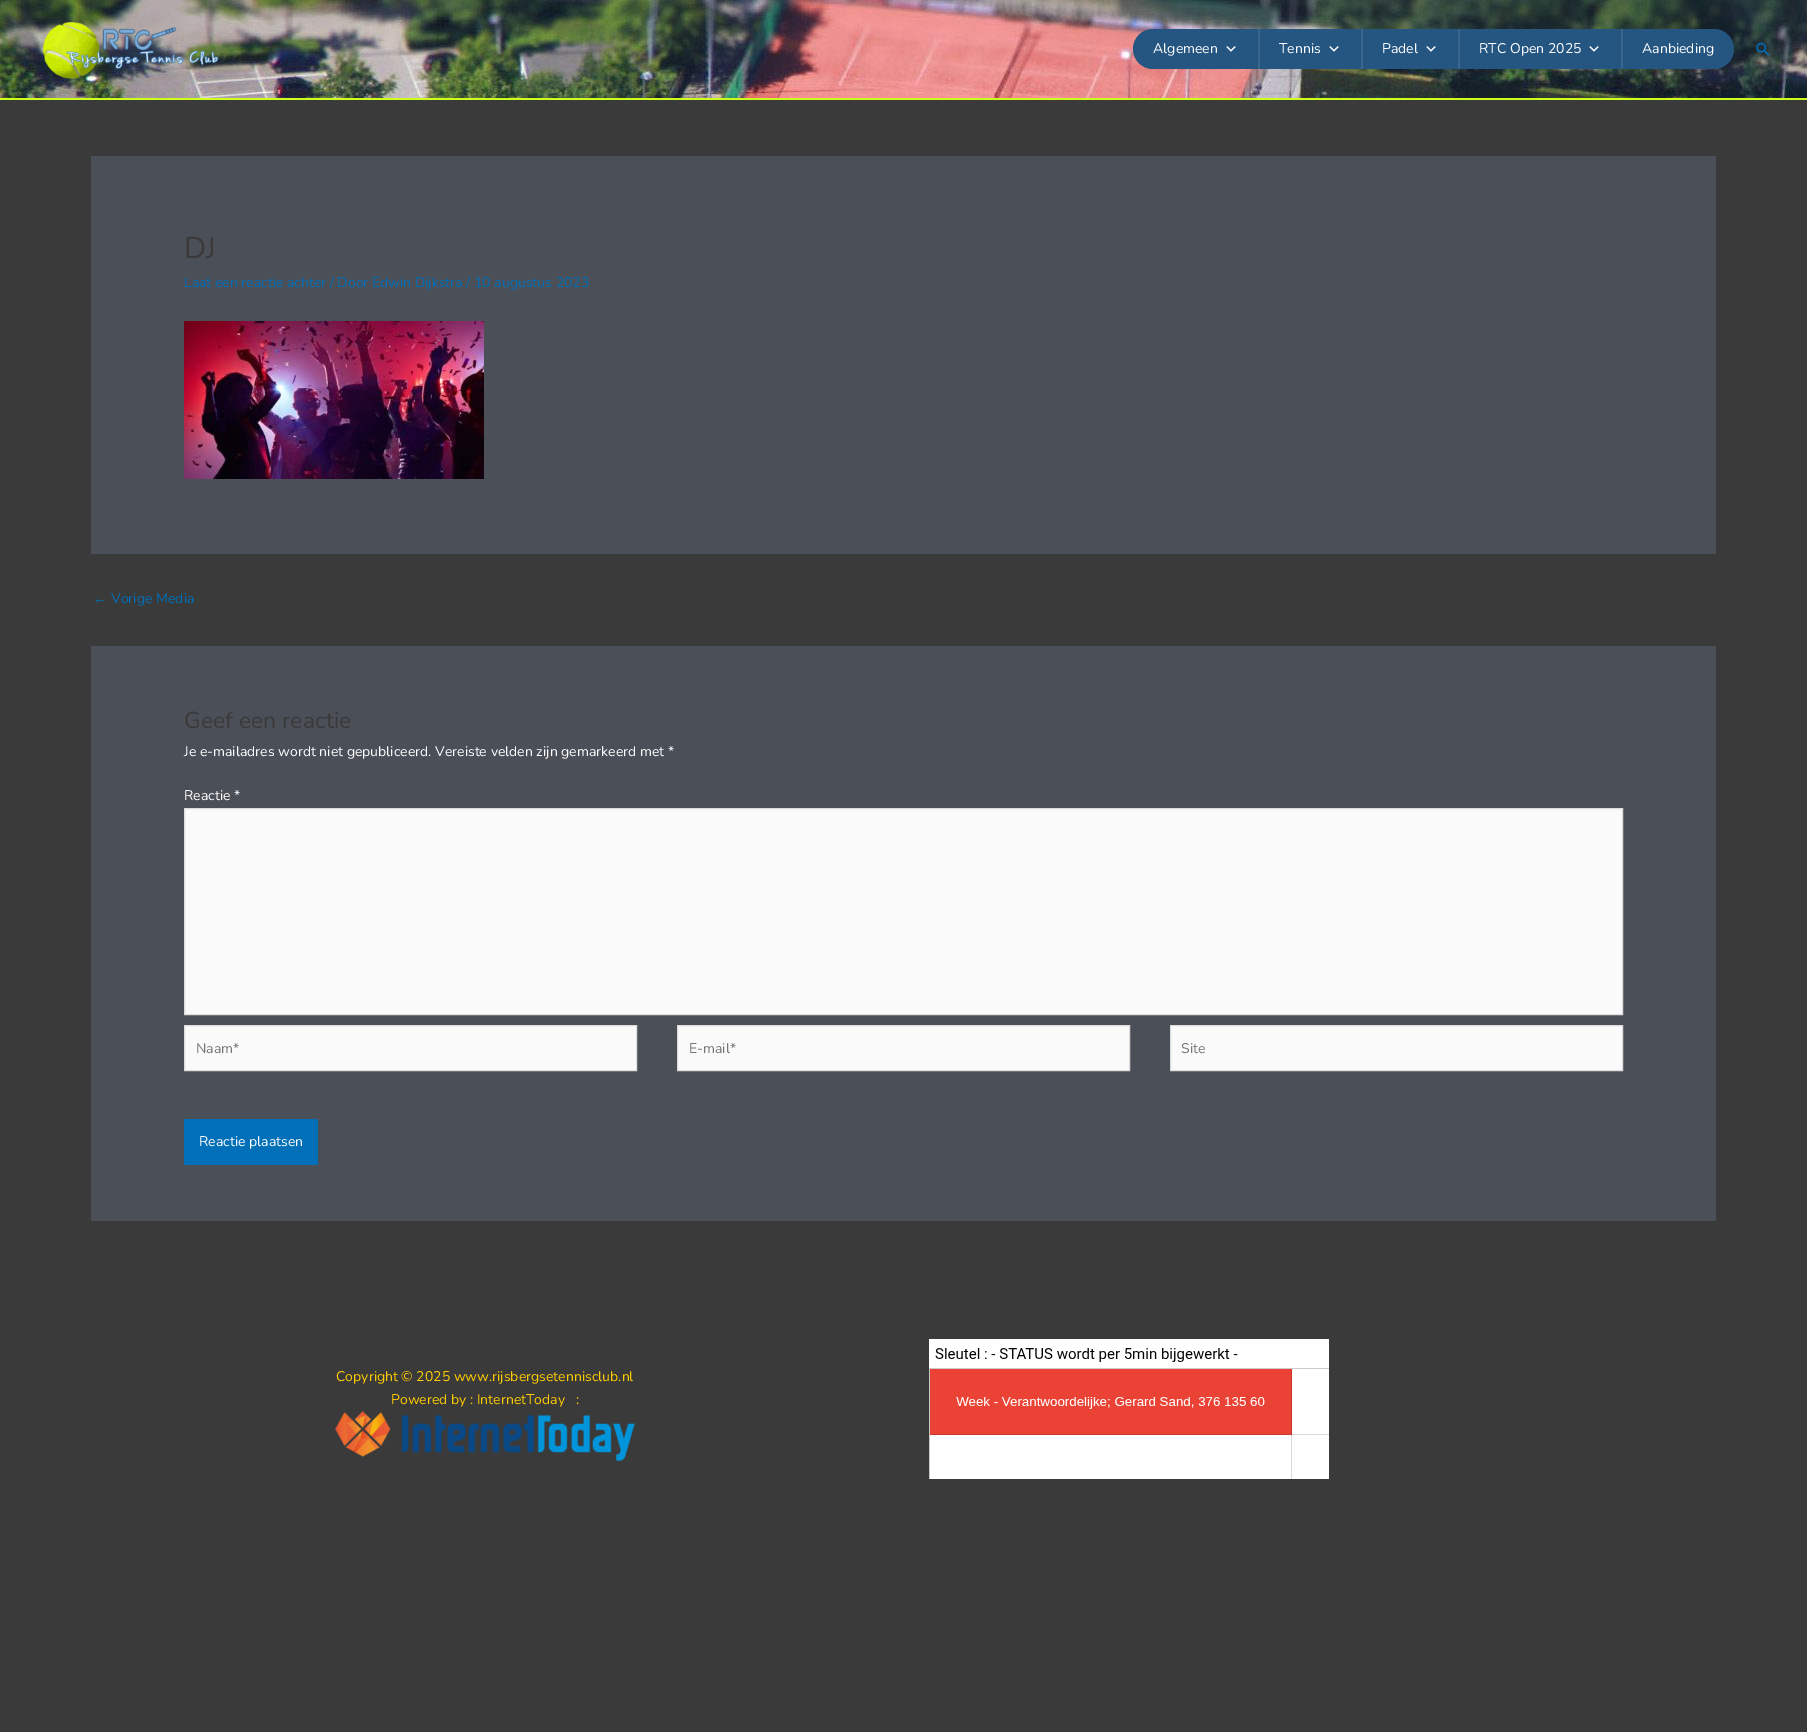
%!PS
<< /PageSize [1807 1732] >> setpagedevice
/mt/moveto load def
/li/lineto load def
/cp/closepath load def
/fl/fill load def
/st/stroke load def
/gs/gsave load def
/gr/grestore load def
/co { dup -16 bitshift 255 div exch dup -8 bitshift 255 and 255 div exch 255 and 255 div setrgbcolor } def
/fn { [ exch dup neg 0 0 3 -1 roll 0 0 ] selectfont } def
/tx { co fn moveto show } def
/bx { co rectfill } def
/rr { 5 dict begin { /r /h /w /y /x } { exch def } forall
  x r add y moveto x w add y 2 copy h add r arct x w add y h add x 1 index r arct
  x y h add x y r arct x y 2 copy exch w add exch r arct closepath end } def
/im { 5 dict begin { /h /w /y /x /name } { exch def } forall
  gsave x y translate w h scale
  w h 8 [w 0 0 h 0 0] name (r) file false 3 colorimage grestore end } def
0 1732 translate 1 -1 scale
4 setmiterlimit
0 0 1807 1732 16#3A3A3A bx
(media/1.raw) 0 0 1807 98 im
0 98 1807 2 16#CEFF1A bx
(media/2.raw) 42 21 177 58 im
16#255682 co
1133 29 601 40 20 rr fl
(media/3.raw) 1226 46 10 6 im
1258 29 2 40 16#3B678F bx
(media/3.raw) 1329 46 10 6 im
1361 29 2 40 16#3B678F bx
(media/3.raw) 1426 46 10 6 im
1458 29 2 40 16#3B678F bx
(media/3.raw) 1589 46 10 6 im
1621 29 2 40 16#3B678F bx
(media/4.raw) 1756 42 14 14 im
91 156 1625 398 16#4B4F58 bx
(media/5.raw) 184 321 300 158 im
91 646 1625 575 16#4B4F58 bx
16#FAFAFA co
184.5 808.5 mt 1622.5 808.5 li 1622.5 1014.5 li 184.5 1014.5 li cp gs fl gr
16#DDDDDD co
st
16#FAFAFA co
184.5 1025.5 mt 636.5 1025.5 li 636.5 1070.5 li 184.5 1070.5 li cp gs fl gr
16#DDDDDD co
st
16#FAFAFA co
677.5 1025.5 mt 1129.5 1025.5 li 1129.5 1070.5 li 677.5 1070.5 li cp gs fl gr
16#DDDDDD co
st
16#FAFAFA co
1170.5 1025.5 mt 1622.5 1025.5 li 1622.5 1070.5 li 1170.5 1070.5 li cp gs fl gr
16#DDDDDD co
st
16#0170B9 co
184 1119 134 46 2 rr fl
(media/6.raw) 335 1411 300 50 im
(media/7.raw) 929 1339 400 140 im
(Algemeen) 1153 53 /Nunito-ExtraLight 14 16#FFFFFF tx
(Tennis) 1279 53 /Nunito-ExtraLight 14 16#FFFFFF tx
(Padel) 1382 53 /Nunito-ExtraLight 14 16#FFFFFF tx
(RTC Open 2025) 1479 53 /Nunito-ExtraLight 14 16#FFFFFF tx
(Aanbieding) 1642 53 /Nunito-ExtraLight 14 16#FFFFFF tx
(DJ) 184 258 /Nunito-ExtraLight 30 16#3A3A3A tx
(Laat een reactie achter / Door Edwin Dijkstra / 10 augustus 2023) 184 287 /Nunito-ExtraLight 14 16#0170B9 tx
(←) 93 603 /LiberationSans-Regular 14 16#0170B9 tx
(Vorige Media) 111 603 /Nunito-ExtraLight 14 16#0170B9 tx
(Geef een reactie) 184 728 /Nunito-ExtraLight 23 16#3A3A3A tx
(Je e-mailadres wordt niet gepubliceerd. Vereiste velden zijn gemarkeerd met *) 184 756 /Nunito-ExtraLight 14 16#FFFFFF tx
(Reactie *) 184 800 /Nunito-ExtraLight 14 16#FFFFFF tx
(Naam*) 196 1053 /Nunito-ExtraLight 14 16#757575 tx
(E-mail*) 689 1053 /Nunito-ExtraLight 14 16#757575 tx
(Site) 1181 1053 /Nunito-ExtraLight 14 16#757575 tx
(Reactie plaatsen) 199 1146 /Nunito-ExtraLight 14 16#FFFFFF tx
(Copyright © 2025 www.rijsbergsetennisclub.nl) 336 1381 /Nunito-ExtraLight 14 16#FFCC00 tx
(Powered by : InternetToday   :) 391 1404 /Nunito-ExtraLight 14 16#FFCC00 tx
showpage
